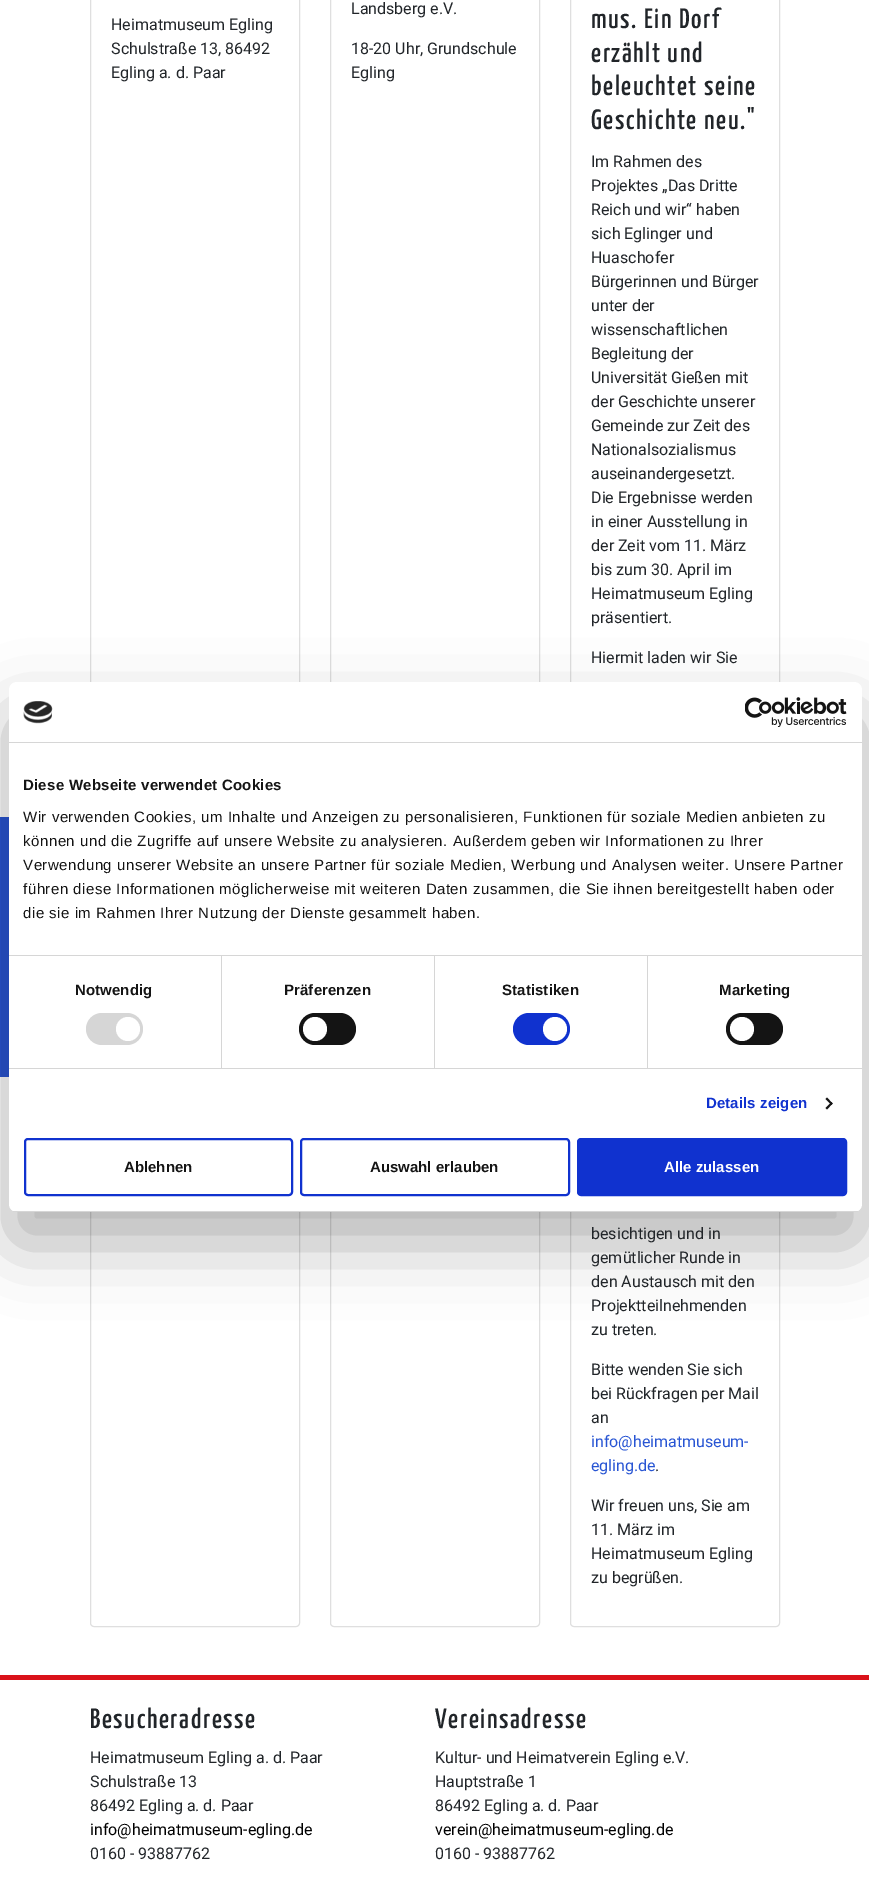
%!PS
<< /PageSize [869 1894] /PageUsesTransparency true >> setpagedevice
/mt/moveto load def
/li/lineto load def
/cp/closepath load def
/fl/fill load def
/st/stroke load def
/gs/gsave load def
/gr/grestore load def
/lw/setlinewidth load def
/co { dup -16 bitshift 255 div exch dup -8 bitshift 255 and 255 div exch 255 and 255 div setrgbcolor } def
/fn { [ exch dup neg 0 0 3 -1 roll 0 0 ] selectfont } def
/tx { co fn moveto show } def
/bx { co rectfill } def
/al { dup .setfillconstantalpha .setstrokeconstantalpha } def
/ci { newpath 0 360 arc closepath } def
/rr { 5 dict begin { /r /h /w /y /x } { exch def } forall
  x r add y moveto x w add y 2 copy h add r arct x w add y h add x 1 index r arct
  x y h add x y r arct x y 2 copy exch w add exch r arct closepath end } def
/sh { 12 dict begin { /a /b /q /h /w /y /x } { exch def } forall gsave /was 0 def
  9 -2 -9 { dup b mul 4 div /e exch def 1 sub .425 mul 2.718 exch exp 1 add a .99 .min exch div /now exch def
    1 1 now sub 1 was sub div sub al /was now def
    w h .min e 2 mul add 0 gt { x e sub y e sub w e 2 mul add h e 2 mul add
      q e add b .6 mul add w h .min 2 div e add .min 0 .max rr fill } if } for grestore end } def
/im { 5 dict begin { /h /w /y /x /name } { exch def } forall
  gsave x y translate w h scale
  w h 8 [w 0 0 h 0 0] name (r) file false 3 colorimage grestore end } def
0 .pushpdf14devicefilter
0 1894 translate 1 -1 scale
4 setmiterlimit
0 0 869 1894 16#FFFFFF bx
0 817 9 260 16#2855D3 bx
16#DFDFDF co
90.5 -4.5 209 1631 3.5 rr st
330.5 -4.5 209 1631 3.5 rr st
570.5 -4.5 209 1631 3.5 rr st
0 1675 869 5 16#DA121A bx
16#000000 co
9 714 853 530 8 34 .3 sh
16#FFFFFF co
9 682 853 530 8 rr fl
9 742 853 1 16#D6D6D6 bx
(media/1.raw) 23 701 30 23 im
(media/2.raw) 745 697 102 30 im
9 955 853 1 16#D6D6D6 bx
9 1068 853 1 16#D6D6D6 bx
221 956 1 112 16#D6D6D6 bx
86 1013 57 32 16 rr fl
16#FFFFFF co
128 1029 12 ci fl
434 956 1 112 16#D6D6D6 bx
16#141414 co
299 1013 57 32 16 rr fl
16#FFFFFF co
315 1029 12 ci fl
647 956 1 112 16#D6D6D6 bx
16#1032CF co
513 1013 57 32 16 rr fl
16#FFFFFF co
555 1029 12 ci fl
16#141414 co
726 1013 57 32 16 rr fl
16#FFFFFF co
742 1029 12 ci fl
16#141414 co
827 1097.5 mt 832.5 1103.5 li 831.5 1105 li 825.5 1099 li cp fl
831.5 1102 mt 832.5 1103.5 li 827 1109.5 li 825.5 1108 li cp fl
gs
9 682 853 530 8 rr clip newpath
9 1211 853 1 16#D6D6D6 bx
gr
16#1032CF co
2 lw
25 1139 267 56 3 rr st
301 1139 268 56 3 rr st
578 1139 268 56 3 rr gs fl gr
st
(Heimatmuseum Egling) 111 30 /Roboto-Regular 16 16#212529 tx
(Schulstraße 13, 86492) 111 54 /Roboto-Regular 16 16#212529 tx
(Egling a. d. Paar) 111 78 /Roboto-Regular 16 16#212529 tx
(Landsberg e.V.) 351 14 /Roboto-Regular 16 16#212529 tx
(18-20 Uhr, Grundschule) 351 54 /Roboto-Regular 16 16#212529 tx
(Egling) 351 78 /Roboto-Regular 16 16#212529 tx
/YanoneKaffeesatz-ExtraLight 28 fn
591 28 mt 1.6 0 (mus. Ein Dorf) ashow
591 62 mt 1.6 0 (erzählt und) ashow
591 95 mt 1.6 0 (beleuchtet seine) ashow
591 129 mt 1.6 0 (Geschichte neu.") ashow
(Im Rahmen des) 591 167 /Roboto-Regular 16 16#212529 tx
(Projektes „Das Dritte) 591 191 /Roboto-Regular 16 16#212529 tx
(Reich und wir“ haben) 591 215 /Roboto-Regular 16 16#212529 tx
(sich Eglinger und) 591 239 /Roboto-Regular 16 16#212529 tx
(Huaschofer) 591 263 /Roboto-Regular 16 16#212529 tx
(Bürgerinnen und Bürger) 591 287 /Roboto-Regular 16 16#212529 tx
(unter der) 591 311 /Roboto-Regular 16 16#212529 tx
(wissenschaftlichen) 591 335 /Roboto-Regular 16 16#212529 tx
(Begleitung der) 591 359 /Roboto-Regular 16 16#212529 tx
(Universität Gießen mit) 591 383 /Roboto-Regular 16 16#212529 tx
(der Geschichte unserer) 591 407 /Roboto-Regular 16 16#212529 tx
(Gemeinde zur Zeit des) 591 431 /Roboto-Regular 16 16#212529 tx
(Nationalsozialismus) 591 455 /Roboto-Regular 16 16#212529 tx
(auseinandergesetzt.) 591 479 /Roboto-Regular 16 16#212529 tx
(Die Ergebnisse werden) 591 503 /Roboto-Regular 16 16#212529 tx
(in einer Ausstellung in) 591 527 /Roboto-Regular 16 16#212529 tx
(der Zeit vom 11. März) 591 551 /Roboto-Regular 16 16#212529 tx
(bis zum 30. April im) 591 575 /Roboto-Regular 16 16#212529 tx
(Heimatmuseum Egling) 591 599 /Roboto-Regular 16 16#212529 tx
(präsentiert.) 591 623 /Roboto-Regular 16 16#212529 tx
(Hiermit laden wir Sie) 591 663 /Roboto-Regular 16 16#212529 tx
(besichtigen und in) 591 1239 /Roboto-Regular 16 16#212529 tx
(gemütlicher Runde in) 591 1263 /Roboto-Regular 16 16#212529 tx
(den Austausch mit den) 591 1287 /Roboto-Regular 16 16#212529 tx
(Projektteilnehmenden) 591 1311 /Roboto-Regular 16 16#212529 tx
(zu treten.) 591 1335 /Roboto-Regular 16 16#212529 tx
(Bitte wenden Sie sich) 591 1375 /Roboto-Regular 16 16#212529 tx
(bei Rückfragen per Mail) 591 1399 /Roboto-Regular 16 16#212529 tx
(an) 591 1423 /Roboto-Regular 16 16#212529 tx
(info@heimatmuseum-) 591 1447 /Roboto-Regular 16 16#2855D3 tx
(egling.de) 591 1471 /Roboto-Regular 16 16#2855D3 tx
(.) 655 1471 /Roboto-Regular 16 16#212529 tx
(Wir freuen uns, Sie am) 591 1511 /Roboto-Regular 16 16#212529 tx
(11. März im) 591 1535 /Roboto-Regular 16 16#212529 tx
(Heimatmuseum Egling) 591 1559 /Roboto-Regular 16 16#212529 tx
(zu begrüßen.) 591 1583 /Roboto-Regular 16 16#212529 tx
/YanoneKaffeesatz-ExtraLight 28 fn
90 1728 mt 1.6 0 (Besucheradresse) ashow
(Heimatmuseum Egling a. d. Paar) 90 1763 /Roboto-Regular 16 16#212529 tx
(Schulstraße 13) 90 1787 /Roboto-Regular 16 16#212529 tx
(86492 Egling a. d. Paar) 90 1811 /Roboto-Regular 16 16#212529 tx
(info@heimatmuseum-egling.de) 90 1835 /Roboto-Regular 16 16#000000 tx
(0160 - 93887762) 90 1859 /Roboto-Regular 16 16#212529 tx
/YanoneKaffeesatz-ExtraLight 28 fn
435 1728 mt 1.6 0 (Vereinsadresse) ashow
(Kultur- und Heimatverein Egling e.V.) 435 1763 /Roboto-Regular 16 16#212529 tx
(Hauptstraße 1) 435 1787 /Roboto-Regular 16 16#212529 tx
(86492 Egling a. d. Paar) 435 1811 /Roboto-Regular 16 16#212529 tx
(verein@heimatmuseum-egling.de) 435 1835 /Roboto-Regular 16 16#000000 tx
(0160 - 93887762) 435 1859 /Roboto-Regular 16 16#212529 tx
/LiberationSans-Bold 15 fn
16#141414 co
23 790 mt .25 0 (Diese Webseite verwendet Cookies) ashow
/LiberationSans-Regular 15 fn
23 822 mt .5 0 (Wir verwenden Cookies, um Inhalte und Anzeigen zu personalisieren, Funktionen für soziale Medien anbieten zu) ashow
23 846 mt .5 0 (können und die Zugriffe auf unsere Website zu analysieren. Außerdem geben wir Informationen zu Ihrer) ashow
23 870 mt .5 0 (Verwendung unserer Website an unsere Partner für soziale Medien, Werbung und Analysen weiter. Unsere Partner) ashow
23 894 mt .5 0 (führen diese Informationen möglicherweise mit weiteren Daten zusammen, die Sie ihnen bereitgestellt haben oder) ashow
23 918 mt .5 0 (die sie im Rahmen Ihrer Nutzung der Dienste gesammelt haben.) ashow
/LiberationSans-Bold 15 fn
75 995 mt .1 0 (Notwendig) ashow
284 995 mt .1 0 (Präferenzen) ashow
502 995 mt .1 0 (Statistiken) ashow
719 995 mt .1 0 (Marketing) ashow
16#1032CF co
706 1108 mt .1 0 (Details zeigen) ashow
(Ablehnen) 124 1172 /LiberationSans-Bold 15 16#141414 tx
(Auswahl erlauben) 370 1172 /LiberationSans-Bold 15 16#141414 tx
(Alle zulassen) 664 1172 /LiberationSans-Bold 15 16#FFFFFF tx
.poppdf14devicefilter showpage
